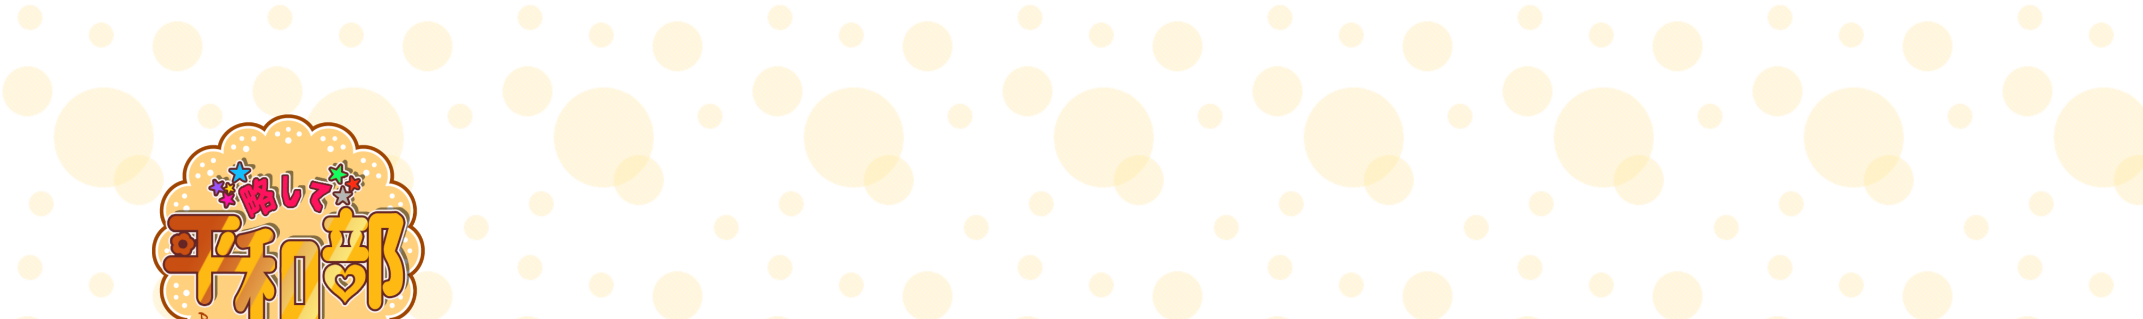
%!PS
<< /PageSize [2143 319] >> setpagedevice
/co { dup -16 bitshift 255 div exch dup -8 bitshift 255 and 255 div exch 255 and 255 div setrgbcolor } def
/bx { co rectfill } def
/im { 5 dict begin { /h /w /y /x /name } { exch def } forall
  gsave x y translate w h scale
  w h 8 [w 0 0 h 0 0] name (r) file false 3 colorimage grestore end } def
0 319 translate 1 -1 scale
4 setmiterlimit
0 0 2143 319 16#FFFFFF bx
(media/1.raw) 0 0 2143 319 im
(media/2.raw) 152 114 273 205 im
showpage
